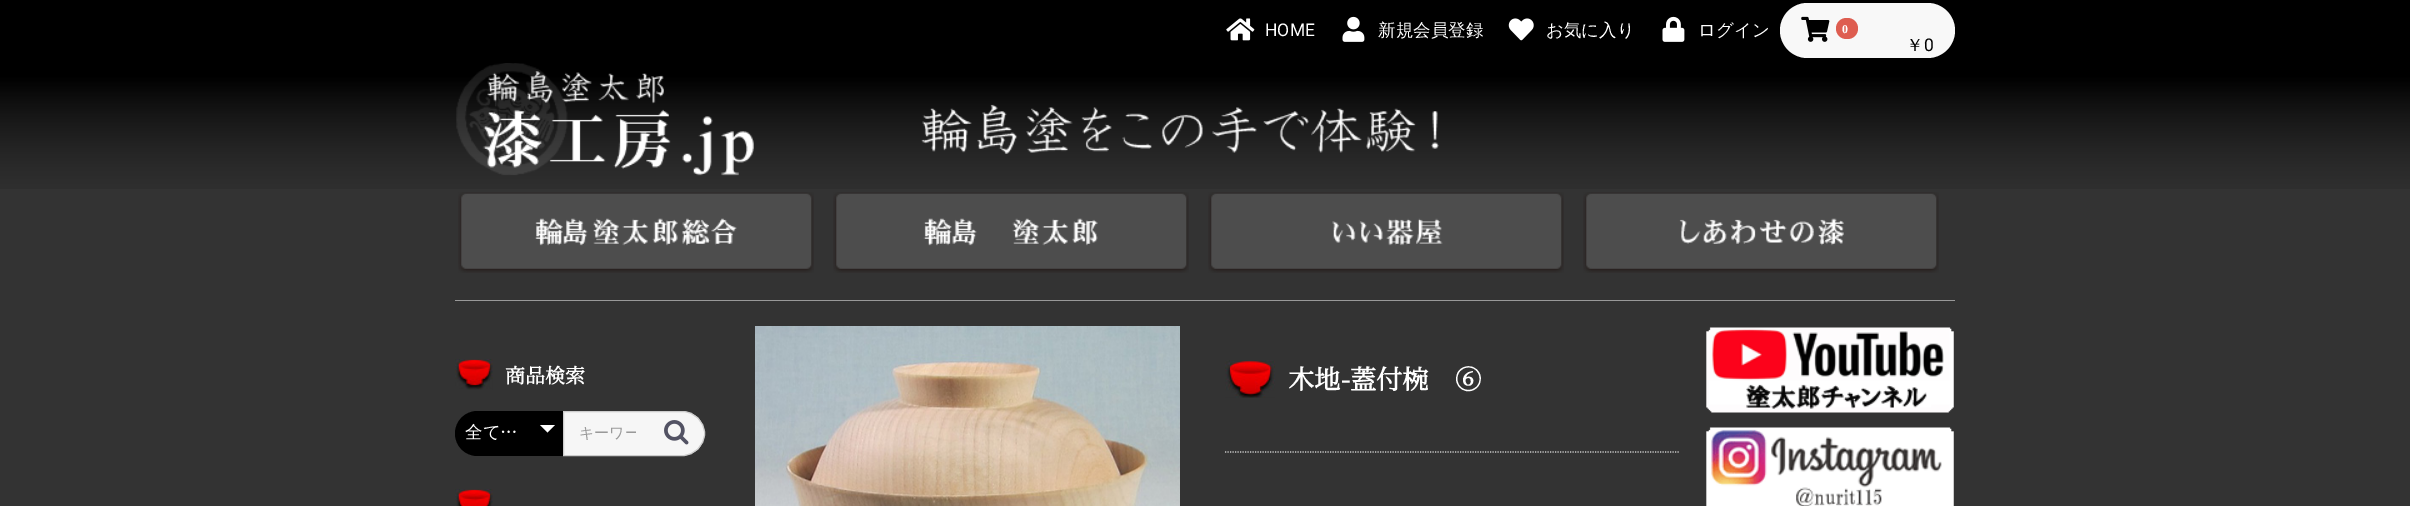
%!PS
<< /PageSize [2410 506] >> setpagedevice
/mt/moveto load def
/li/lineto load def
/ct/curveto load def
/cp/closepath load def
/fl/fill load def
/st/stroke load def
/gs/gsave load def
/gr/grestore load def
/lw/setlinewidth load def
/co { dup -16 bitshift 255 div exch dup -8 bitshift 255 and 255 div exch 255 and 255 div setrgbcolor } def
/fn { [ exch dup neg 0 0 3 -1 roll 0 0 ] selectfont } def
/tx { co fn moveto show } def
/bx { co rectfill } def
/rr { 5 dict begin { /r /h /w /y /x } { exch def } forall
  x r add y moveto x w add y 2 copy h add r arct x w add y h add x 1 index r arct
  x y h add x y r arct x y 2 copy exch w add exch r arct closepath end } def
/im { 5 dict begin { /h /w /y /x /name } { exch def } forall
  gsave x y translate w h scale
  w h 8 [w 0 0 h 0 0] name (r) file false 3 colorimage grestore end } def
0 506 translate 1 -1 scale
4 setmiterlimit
0 0 2410 506 16#333333 bx
0 0 2410 63 16#000000 bx
(media/1.raw) 1226 18 29 23 im
(media/2.raw) 1342 16 23 26 im
(media/3.raw) 1508 18 26 23 im
(media/4.raw) 1662 16 23 26 im
16#F8F8F8 co
1780 3 175 55 27.5 rr fl
(media/5.raw) 1801 16 29 26 im
16#DE5D50 co
1836 18 22 21 10.5 rr fl
(media/6.raw) 0 63 2410 126 im
455 300 1500 1 16#999999 bx
(media/7.raw) 456 63 983 113 im
(media/8.raw) 458 192 356 81 im
(media/9.raw) 833 192 356 81 im
(media/10.raw) 1208 192 356 81 im
(media/11.raw) 1583 192 356 81 im
(media/12.raw) 455 359 38 31 im
16#000000 co
477.5 411 mt 563 411 li 563 456 li 477.5 456 li 465 456 455 446 455 433.5 ct 455 421 465 411 477.5 411 ct cp fl
16#FFFFFF co
540 425 mt 555 425 li 547.5 432.5 li cp fl
16#F6F6F6 co
563.5 411.5 mt 682.5 411.5 li 694.5 411.5 704.5 421.5 704.5 433.5 ct 704.5 445.5 694.5 455.5 682.5 455.5 ct 563.5 455.5 li cp gs fl gr
16#CCCCCC co
st
(media/13.raw) 664 420 25 25 im
(media/14.raw) 455 489 38 17 im
(media/15.raw) 755 326 425 180 im
(media/16.raw) 1225 360 50 38 im
1.2 lw
[1.25 1.25] 0 setdash
1225 452 mt 1680 452 li st
(media/17.raw) 1706 327 248 86 im
(media/18.raw) 1706 427 248 79 im
(HOME) 1265 36 /Roboto-Regular 17.5 16#FFFFFF tx
(新規会員登録) 1378 36 /WenQuanYiZenHei-Medium 17.5 16#FFFFFF tx
(お気に入り) 1546 36 /WenQuanYiZenHei-Medium 17.5 16#FFFFFF tx
(ログイン) 1698 36 /WenQuanYiZenHei-Medium 17.5 16#FFFFFF tx
(0) 1842 33 /LiberationSerif-Bold 12 16#FFFFFF tx
(￥) 1906 51 /WenQuanYiZenHei-Medium 17.5 16#000000 tx
(0) 1924 51 /Roboto-Regular 17.5 16#000000 tx
(商品検索) 505 383 /NotoSerifJP-Bold 20 16#FFFFFF tx
(全て…) 465 438 /WenQuanYiZenHei-Medium 17.5 16#FFFFFF tx
gs
579 424 57 21 rectclip
(キーワー) 579 438 /WenQuanYiZenHei-Medium 15 16#999999 tx
gr
(木地-蓋付椀　⑥) 1288 389 /NotoSerifJP-Bold 26.25 16#FFFFFF tx
showpage
